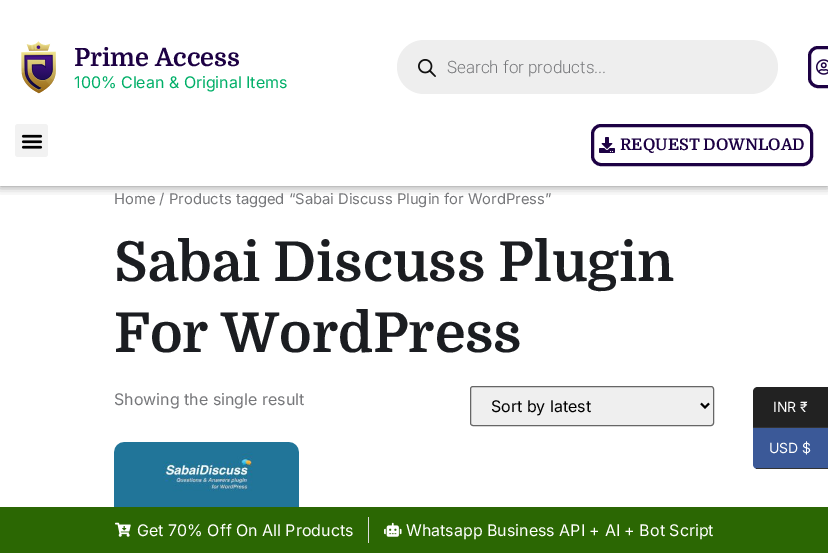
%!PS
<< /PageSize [828 553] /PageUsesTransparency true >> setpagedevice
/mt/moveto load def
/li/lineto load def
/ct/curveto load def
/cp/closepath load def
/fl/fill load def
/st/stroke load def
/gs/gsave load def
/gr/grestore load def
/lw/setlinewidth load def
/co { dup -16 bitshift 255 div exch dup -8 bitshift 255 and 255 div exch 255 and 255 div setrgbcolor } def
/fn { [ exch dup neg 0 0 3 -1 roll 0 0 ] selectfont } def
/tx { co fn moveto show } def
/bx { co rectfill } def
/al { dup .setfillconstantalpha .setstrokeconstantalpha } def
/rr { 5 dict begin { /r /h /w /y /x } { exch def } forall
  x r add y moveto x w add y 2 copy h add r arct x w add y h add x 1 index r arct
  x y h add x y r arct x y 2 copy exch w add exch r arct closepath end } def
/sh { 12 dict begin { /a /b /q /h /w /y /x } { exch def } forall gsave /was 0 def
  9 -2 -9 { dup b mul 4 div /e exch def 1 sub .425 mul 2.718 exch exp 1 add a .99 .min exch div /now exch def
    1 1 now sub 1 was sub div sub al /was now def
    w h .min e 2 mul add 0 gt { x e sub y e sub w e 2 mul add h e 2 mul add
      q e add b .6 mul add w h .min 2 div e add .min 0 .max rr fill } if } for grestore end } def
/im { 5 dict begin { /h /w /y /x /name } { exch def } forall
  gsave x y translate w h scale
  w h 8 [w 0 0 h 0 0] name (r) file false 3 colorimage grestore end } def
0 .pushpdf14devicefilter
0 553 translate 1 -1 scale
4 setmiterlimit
0 0 828 553 16#FFFFFF bx
gs
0 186 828 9 rectclip
16#000000 co
0 0 828 186 0 5 .5 sh
gr
(media/1.raw) 21 41 35 53 im
16#EEEEEE co
397 40 381 54 27 rr fl
(media/2.raw) 418 59 18 18 im
16#1D0144 co
3 lw
809.5 47.5 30 39 8.5 rr st
(media/3.raw) 816 59 12 16 im
16#F2F2F2 co
15 124 33 33 3 rr fl
(media/4.raw) 21 134 22 15 im
16#1D0144 co
592.5 125.5 219 39 8.5 rr st
(media/5.raw) 599 137 16 16 im
16#EFEFEF co
470.5 386.5 243 39 2.5 rr gs fl gr
16#666666 co
1 lw
st
16#000000 co
2 lw
701 403.5 mt 705 407.5 li 709 403.5 li st
(media/6.raw) 114 442 185 65 im
16#222222 co
758 387 mt 828 387 li 828 428 li 753 428 li 753 392 li 753 389 755 387 758 387 ct cp fl
753 427 75 1 16#333333 bx
16#3B5998 co
753 428 mt 828 428 li 828 469 li 758 469 li 755 469 753 467 753 464 ct cp fl
756 468 72 1 16#333333 bx
0 507 828 46 16#2B6703 bx
(media/7.raw) 115 522 16 15 im
368 517 1 26 16#DDDDDD bx
(media/8.raw) 384 522 18 15 im
(Prime Access) 74 66 /Domine-Bold 25 16#1D0144 tx
(100% Clean & Original Items) 74 88 /Inter-Regular 16 16#00AF68 tx
(Search for products...) 447 73 /Roboto-Light 17 16#76777A tx
(REQUEST DOWNLOAD) 620 150 /Domine-Bold 16 16#1D0144 tx
(Home / Products tagged “Sabai Discuss Plugin for WordPress”) 114 204 /Inter-Regular 14.75 16#76777A tx
(Sabai Discuss Plugin) 114 281 /Domine-Bold 55 16#1B1D21 tx
(For WordPress) 114 352 /Domine-Bold 55 16#1B1D21 tx
(Showing the single result) 114 405 /Inter-Regular 16 16#76777A tx
(Sort by latest) 491 412 /Inter-Regular 16 16#000000 tx
(INR ₹) 773 412 /Inter-Regular 14 16#FFFFFF tx
(USD $) 769 453 /Inter-Regular 14 16#FFFFFF tx
(Get 70% Off On All Products) 137 536 /Inter-Regular 16 16#FFFFFF tx
(Whatsapp Business API + AI + Bot Script) 406 536 /Inter-Regular 16 16#FFFFFF tx
.poppdf14devicefilter showpage
